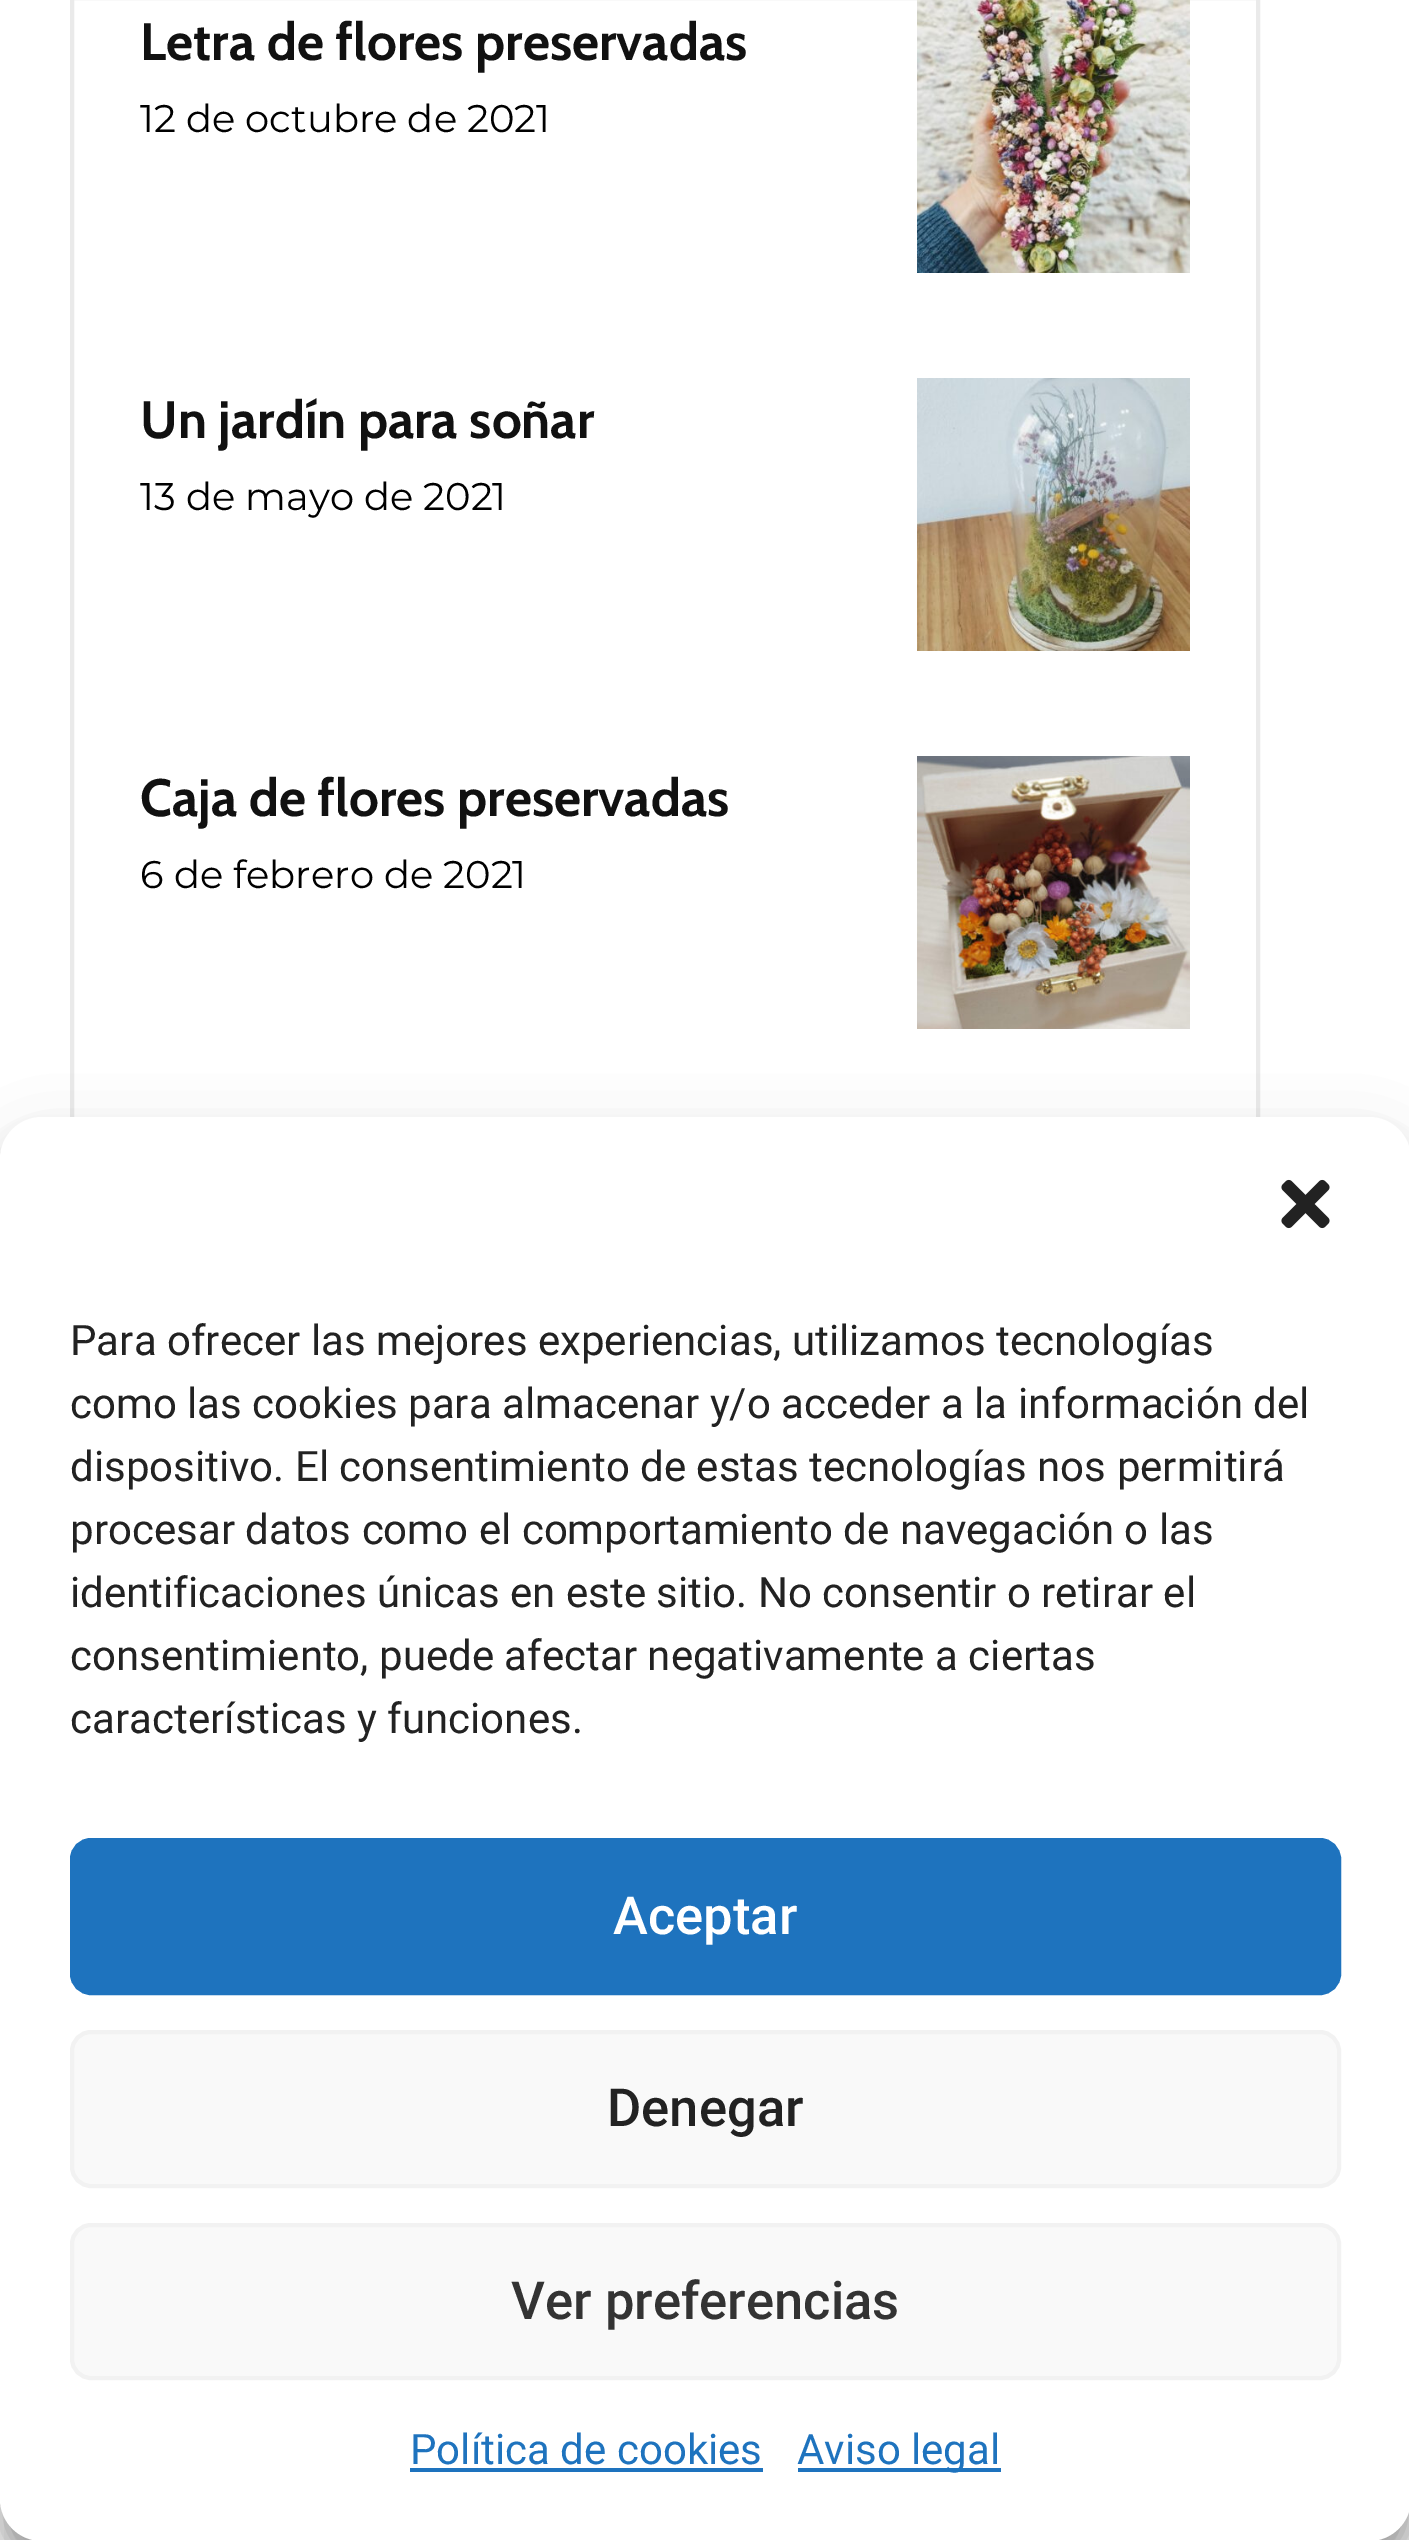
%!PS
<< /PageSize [1409 2540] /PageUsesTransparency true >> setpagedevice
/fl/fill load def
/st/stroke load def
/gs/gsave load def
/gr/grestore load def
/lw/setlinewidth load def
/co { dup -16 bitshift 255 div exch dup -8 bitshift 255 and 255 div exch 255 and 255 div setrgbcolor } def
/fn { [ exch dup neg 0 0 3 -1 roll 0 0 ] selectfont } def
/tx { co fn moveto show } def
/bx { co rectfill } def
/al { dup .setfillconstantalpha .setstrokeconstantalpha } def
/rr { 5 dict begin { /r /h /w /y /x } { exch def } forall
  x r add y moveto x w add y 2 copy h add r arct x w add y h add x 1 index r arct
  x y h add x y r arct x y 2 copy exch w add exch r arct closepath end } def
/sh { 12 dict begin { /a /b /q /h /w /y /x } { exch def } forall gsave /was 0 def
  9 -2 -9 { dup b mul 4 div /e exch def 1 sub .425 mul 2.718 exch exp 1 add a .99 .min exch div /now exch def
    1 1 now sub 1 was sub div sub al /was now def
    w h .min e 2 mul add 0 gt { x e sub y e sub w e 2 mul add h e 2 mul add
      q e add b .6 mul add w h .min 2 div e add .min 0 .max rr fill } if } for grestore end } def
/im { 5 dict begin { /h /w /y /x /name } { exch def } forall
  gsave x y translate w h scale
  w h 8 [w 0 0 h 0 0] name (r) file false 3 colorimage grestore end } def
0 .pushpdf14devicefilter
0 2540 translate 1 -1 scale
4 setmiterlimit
0 0 1409 2540 16#FFFFFF bx
16#EAEAEA co
4 lw
72 -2 1186 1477 rectstroke
(media/1.raw) 917 0 273 273 im
(media/2.raw) 917 378 273 273 im
(media/3.raw) 917 756 273 273 im
4 2511 1405 29 16#F9F9F9 bx
16#000000 co
0 1138 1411 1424 42 10.5 .23 sh
0 1152 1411 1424 42 35 .19 sh
16#FFFFFF co
0 1117 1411 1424 42 rr fl
(media/4.raw) 1281 1179 49 50 im
16#1E73BE co
72 1840 1267 153 19 rr gs fl gr
st
16#F9F9F9 co
72 2032 1267 154 19 rr gs fl gr
16#F2F2F2 co
st
16#F9F9F9 co
72 2225 1267 153 19 rr gs fl gr
16#F2F2F2 co
st
410 2468 353 4 16#1E73BE bx
798 2468 203 4 16#1E73BE bx
(Letra de flores preservadas) 140 60 /Cabin-Bold 52.5 16#111111 tx
(12 de octubre de 2021) 140 132 /Montserrat-Regular 38.5 16#000000 tx
(Un jardín para soñar) 140 438 /Cabin-Bold 52.5 16#111111 tx
(13 de mayo de 2021) 140 510 /Montserrat-Regular 38.5 16#000000 tx
(Caja de flores preservadas) 140 816 /Cabin-Bold 52.5 16#111111 tx
(6 de febrero de 2021) 140 888 /Montserrat-Regular 38.5 16#000000 tx
(Para ofrecer las mejores experiencias, utilizamos tecnologías) 70 1355 /Roboto-Regular 42 16#222222 tx
(como las cookies para almacenar y/o acceder a la información del) 70 1418 /Roboto-Regular 42 16#222222 tx
(dispositivo. El consentimiento de estas tecnologías nos permitirá) 70 1481 /Roboto-Regular 42 16#222222 tx
(procesar datos como el comportamiento de navegación o las) 70 1544 /Roboto-Regular 42 16#222222 tx
(identificaciones únicas en este sitio. No consentir o retirar el) 70 1607 /Roboto-Regular 42 16#222222 tx
(consentimiento, puede afectar negativamente a ciertas) 70 1670 /Roboto-Regular 42 16#222222 tx
(características y funciones.) 70 1733 /Roboto-Regular 42 16#222222 tx
(Aceptar) 613 1934 /Roboto-Medium 52.5 16#FFFFFF tx
(Denegar) 607 2126 /Roboto-Medium 52.5 16#222222 tx
(Ver preferencias) 511 2319 /Roboto-Medium 52.5 16#333333 tx
(Política de cookies) 410 2464 /Roboto-Regular 42 16#1E73BE tx
(Aviso legal) 797 2464 /Roboto-Regular 42 16#1E73BE tx
.poppdf14devicefilter showpage
